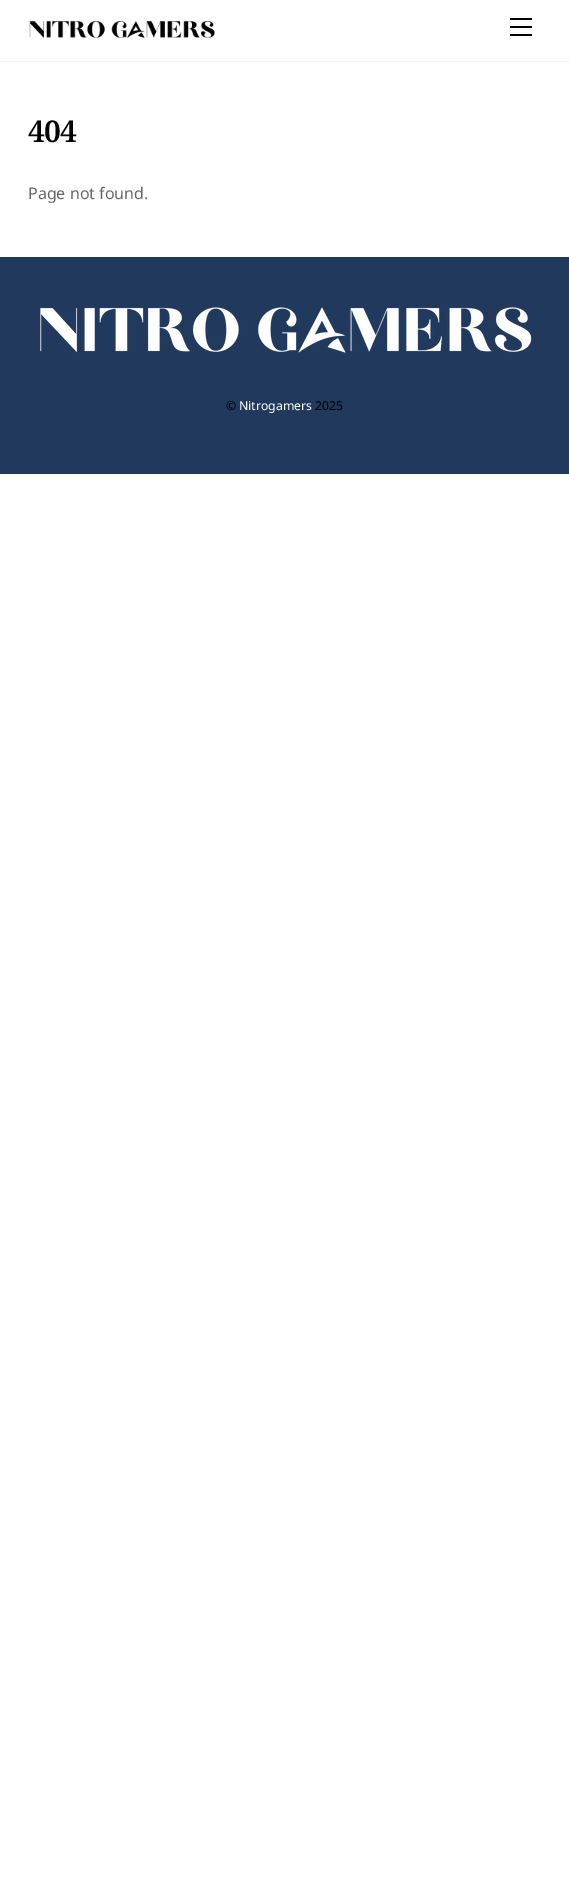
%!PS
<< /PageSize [569 1878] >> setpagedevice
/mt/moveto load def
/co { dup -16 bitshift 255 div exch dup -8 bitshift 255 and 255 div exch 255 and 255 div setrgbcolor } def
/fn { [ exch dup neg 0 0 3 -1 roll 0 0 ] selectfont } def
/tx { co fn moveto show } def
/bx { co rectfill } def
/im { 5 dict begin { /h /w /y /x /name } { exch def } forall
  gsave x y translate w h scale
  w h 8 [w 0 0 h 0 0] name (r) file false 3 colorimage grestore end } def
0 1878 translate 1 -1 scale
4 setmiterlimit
0 0 569 1878 16#FFFFFF bx
0 61 569 1 16#F2F2F2 bx
(media/1.raw) 29 20 186 19 im
510 34 22 2 16#000000 bx
510 18 22 2 16#000000 bx
510 26 22 2 16#000000 bx
0 258 569 216 16#20395C bx
0 257 569 1 16#1E3657 bx
(media/2.raw) 40 307 492 46 im
/NotoSerif-SemiBold 30 fn
16#000000 co
28 142 mt -1 0 (404) ashow
(Page not found.) 28 199 /NotoSans-Regular 16 16#666666 tx
(©) 226 410 /NotoSans-Regular 12.25 16#000000 tx
(Nitrogamers) 239 410 /NotoSans-Regular 12.25 16#FFFFFF tx
(2025) 315 410 /NotoSans-Regular 12.25 16#000000 tx
showpage
